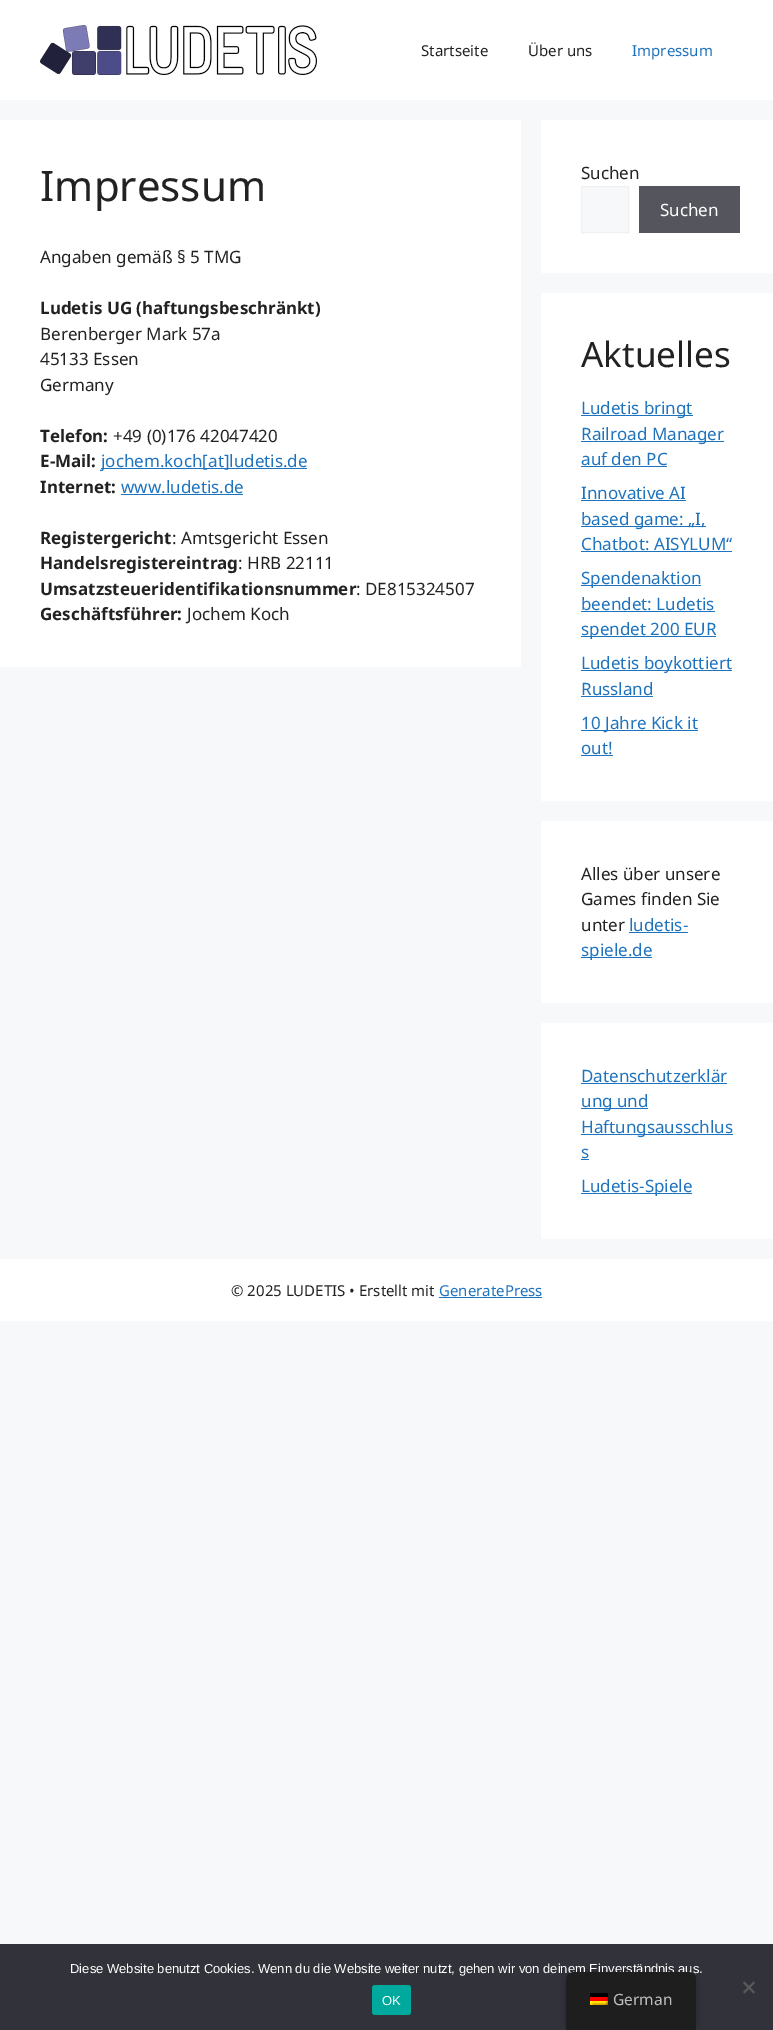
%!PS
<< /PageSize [773 2030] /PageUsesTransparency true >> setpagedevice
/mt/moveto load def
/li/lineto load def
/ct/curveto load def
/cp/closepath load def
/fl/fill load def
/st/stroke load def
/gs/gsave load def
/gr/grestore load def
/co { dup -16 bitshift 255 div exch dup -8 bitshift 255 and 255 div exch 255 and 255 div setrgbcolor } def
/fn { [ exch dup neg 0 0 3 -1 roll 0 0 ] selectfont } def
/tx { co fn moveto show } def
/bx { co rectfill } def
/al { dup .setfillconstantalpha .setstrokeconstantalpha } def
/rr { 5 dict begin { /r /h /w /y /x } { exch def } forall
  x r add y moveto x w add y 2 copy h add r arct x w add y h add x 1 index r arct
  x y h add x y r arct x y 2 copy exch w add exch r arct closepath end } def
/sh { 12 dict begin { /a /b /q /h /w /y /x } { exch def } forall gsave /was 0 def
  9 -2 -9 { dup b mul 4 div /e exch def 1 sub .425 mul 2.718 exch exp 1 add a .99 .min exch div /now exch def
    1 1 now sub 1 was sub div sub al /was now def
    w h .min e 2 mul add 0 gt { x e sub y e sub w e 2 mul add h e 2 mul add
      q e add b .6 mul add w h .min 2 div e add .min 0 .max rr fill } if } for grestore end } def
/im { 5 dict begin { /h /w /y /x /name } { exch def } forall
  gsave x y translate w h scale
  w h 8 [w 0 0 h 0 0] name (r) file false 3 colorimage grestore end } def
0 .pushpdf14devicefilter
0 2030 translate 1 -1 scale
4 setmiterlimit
0 0 773 2030 16#F7F8F9 bx
0 0 773 100 16#FFFFFF bx
(media/1.raw) 40 25 277 50 im
0 120 521 547 16#FFFFFF bx
101 468 206 1 16#1E73BE bx
121 494 122 1 16#1E73BE bx
541 120 232 153 16#FFFFFF bx
16#F7F8F9 co
581.5 186.5 mt 628.5 186.5 li 628.5 232.5 li 581.5 232.5 li cp gs fl gr
16#F0F0F0 co
st
639 186 101 47 16#55555E bx
541 293 232 508 16#FFFFFF bx
581 415 112 1 16#1E73BE bx
581 441 143 1 16#1E73BE bx
581 466 86 1 16#1E73BE bx
581 500 105 1 16#1E73BE bx
581 526 125 1 16#1E73BE bx
581 551 151 1 16#1E73BE bx
581 585 120 1 16#1E73BE bx
581 611 134 1 16#1E73BE bx
581 636 135 1 16#1E73BE bx
581 670 151 1 16#1E73BE bx
581 696 72 1 16#1E73BE bx
581 730 117 1 16#1E73BE bx
581 755 32 1 16#1E73BE bx
541 821 232 182 16#FFFFFF bx
629 932 59 1 16#1E73BE bx
581 957 71 1 16#1E73BE bx
541 1023 232 216 16#FFFFFF bx
581 1083 146 1 16#1E73BE bx
581 1108 67 1 16#1E73BE bx
581 1134 152 1 16#1E73BE bx
581 1159 8 1 16#1E73BE bx
581 1193 111 1 16#1E73BE bx
0 1259 773 62 16#FFFFFF bx
439 1297 103 1 16#1E73BE bx
0 1944 773 86 16#32323A bx
16#59595D co
753.5 1981.5 mt 755 1983 li 744.5 1993.5 li 743 1992 li cp fl
743 1983 mt 744.5 1981.5 li 755 1992 li 753.5 1993.5 li cp fl
16#00A99D co
372 1985 39 30 3 rr fl
16#000000 co
566 1972 130 58 8 4 .25 sh
(Startseite) 421 56 /NotoSans-Regular 15 16#222222 tx
(Über uns) 528 56 /NotoSans-Regular 15 16#222222 tx
(Impressum) 632 56 /NotoSans-Regular 15 16#1E73BE tx
(Impressum) 40 201 /NotoSans-Regular 42 16#222222 tx
(Angaben gemäß § 5 TMG) 40 263 /NotoSans-Regular 17 16#222222 tx
(Ludetis UG \(haftungsbeschränkt\)) 40 314 /NotoSans-Bold 17 16#222222 tx
(Berenberger Mark 57a) 40 340 /NotoSans-Regular 17 16#222222 tx
(45133 Essen) 40 365 /NotoSans-Regular 17 16#222222 tx
(Germany) 40 391 /NotoSans-Regular 17 16#222222 tx
(Telefon:) 40 442 /NotoSans-Bold 17 16#222222 tx
(+49 \(0\)176 42047420) 113 442 /NotoSans-Regular 17 16#222222 tx
(E-Mail:) 40 467 /NotoSans-Bold 17 16#222222 tx
(jochem.koch[at]ludetis.de) 101 467 /NotoSans-Regular 17 16#1E73BE tx
(Internet:) 40 493 /NotoSans-Bold 17 16#222222 tx
(www.ludetis.de) 121 493 /NotoSans-Regular 17 16#1E73BE tx
(Registergericht) 40 544 /NotoSans-Bold 17 16#222222 tx
(: Amtsgericht Essen) 172 544 /NotoSans-Regular 17 16#222222 tx
(Handelsregistereintrag) 40 569 /NotoSans-Bold 17 16#222222 tx
(: HRB 22111) 238 569 /NotoSans-Regular 17 16#222222 tx
(Umsatzsteueridentifikationsnummer) 40 595 /NotoSans-Bold 17 16#222222 tx
(: DE815324507) 356 595 /NotoSans-Regular 17 16#222222 tx
(Geschäftsführer:) 40 620 /NotoSans-Bold 17 16#222222 tx
(Jochem Koch) 187 620 /NotoSans-Regular 17 16#222222 tx
(Suchen) 581 179 /NotoSans-Regular 17 16#222222 tx
(Suchen) 660 216 /NotoSans-Regular 17 16#FFFFFF tx
(Aktuelles) 581 367 /NotoSans-Regular 35 16#222222 tx
(Ludetis bringt) 581 414 /NotoSans-Regular 17 16#1E73BE tx
(Railroad Manager) 581 440 /NotoSans-Regular 17 16#1E73BE tx
(auf den PC) 581 465 /NotoSans-Regular 17 16#1E73BE tx
(Innovative AI) 581 499 /NotoSans-Regular 17 16#1E73BE tx
(based game: „I,) 581 525 /NotoSans-Regular 17 16#1E73BE tx
(Chatbot: AISYLUM“) 581 550 /NotoSans-Regular 17 16#1E73BE tx
(Spendenaktion) 581 584 /NotoSans-Regular 17 16#1E73BE tx
(beendet: Ludetis) 581 610 /NotoSans-Regular 17 16#1E73BE tx
(spendet 200 EUR) 581 635 /NotoSans-Regular 17 16#1E73BE tx
(Ludetis boykottiert) 581 669 /NotoSans-Regular 17 16#1E73BE tx
(Russland) 581 695 /NotoSans-Regular 17 16#1E73BE tx
(10 Jahre Kick it) 581 729 /NotoSans-Regular 17 16#1E73BE tx
(out!) 581 754 /NotoSans-Regular 17 16#1E73BE tx
(Alles über unsere) 581 880 /NotoSans-Regular 17 16#222222 tx
(Games finden Sie) 581 905 /NotoSans-Regular 17 16#222222 tx
(unter) 581 931 /NotoSans-Regular 17 16#222222 tx
(ludetis-) 629 931 /NotoSans-Regular 17 16#1E73BE tx
(spiele.de) 581 956 /NotoSans-Regular 17 16#1E73BE tx
(Datenschutzerklär) 581 1082 /NotoSans-Regular 17 16#1E73BE tx
(ung und) 581 1107 /NotoSans-Regular 17 16#1E73BE tx
(Haftungsausschlus) 581 1133 /NotoSans-Regular 17 16#1E73BE tx
(s) 581 1158 /NotoSans-Regular 17 16#1E73BE tx
(Ludetis-Spiele) 581 1192 /NotoSans-Regular 17 16#1E73BE tx
(© 2025 LUDETIS • Erstellt mit) 231 1296 /NotoSans-Regular 15 16#222222 tx
(GeneratePress) 439 1296 /NotoSans-Regular 15 16#1E73BE tx
(Diese Website benutzt Cookies. Wenn du die Website weiter nutzt, gehen wir von deinem Einverständnis aus.) 70 1973 /LiberationSans-Regular 13 16#FFFFFF tx
(OK) 382 2005 /LiberationSans-Regular 13 16#FFFFFF tx
16#1E1E1E co
574 1972 mt 688 1972 li 692.5 1972 696 1975.5 696 1980 ct 696 2030 li 566 2030 li 566 1980 li 566 1975.5 569.5 1972 574 1972 ct cp fl
(media/2.raw) 590 1993 18 12 im
(German) 613 2005 /NotoSans-Regular 15.5 16#BDBDBD tx
.poppdf14devicefilter showpage
